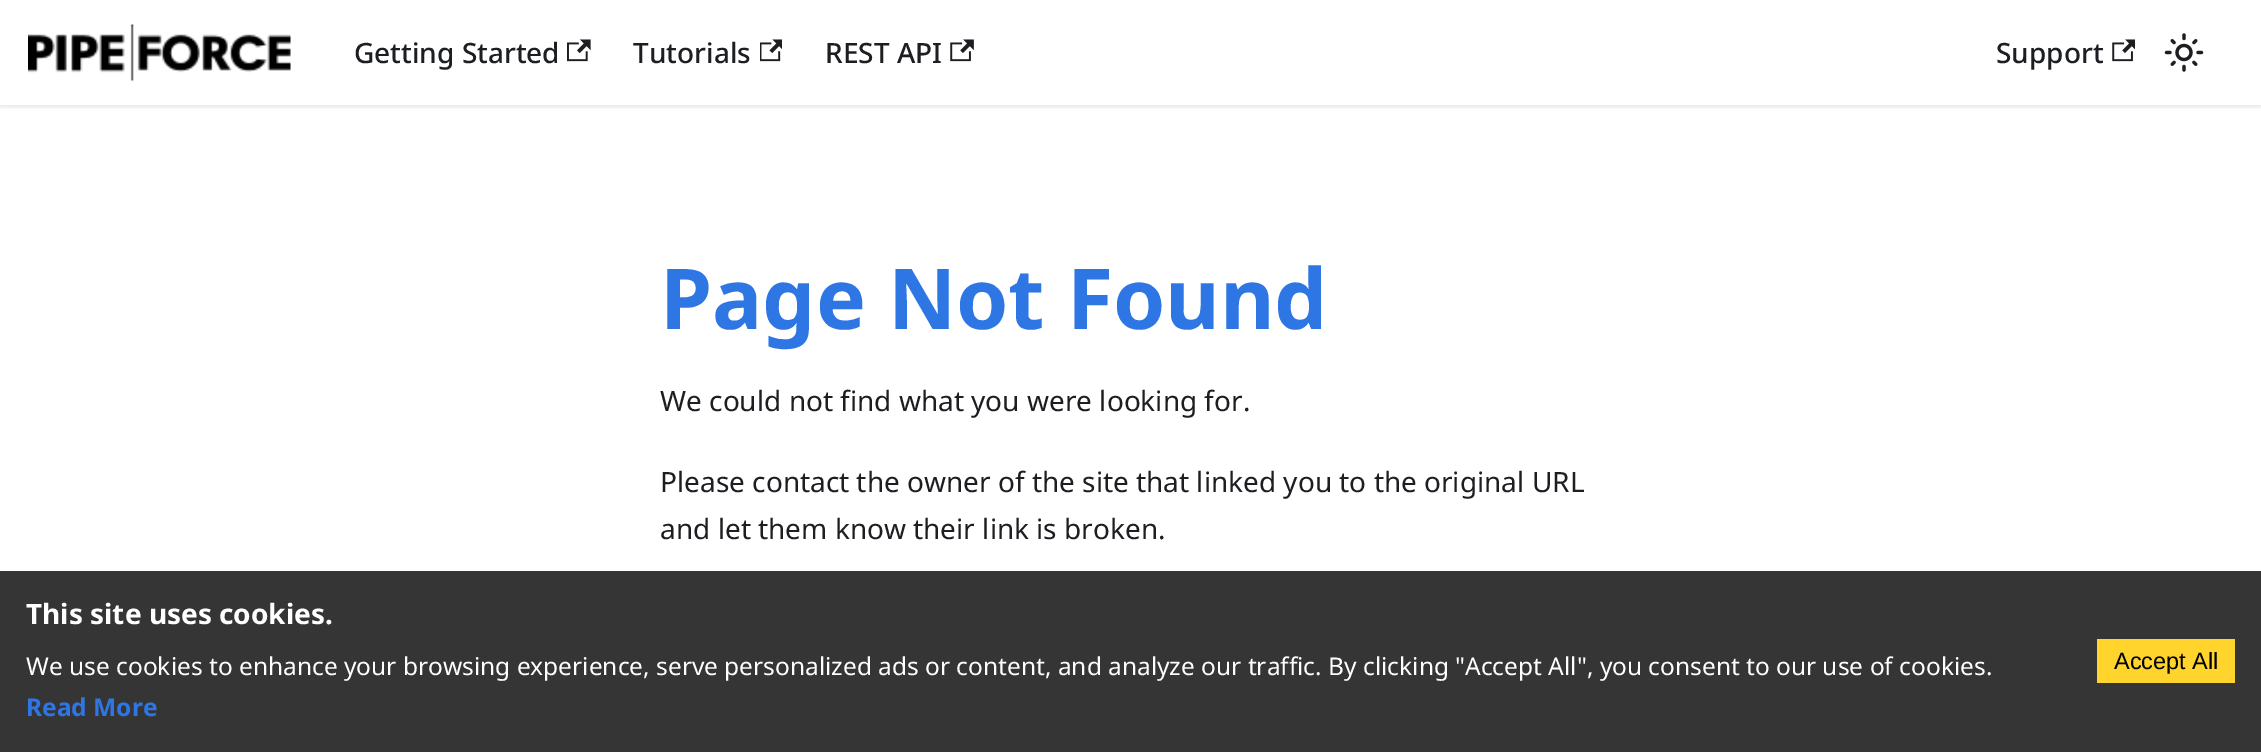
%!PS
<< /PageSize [2261 752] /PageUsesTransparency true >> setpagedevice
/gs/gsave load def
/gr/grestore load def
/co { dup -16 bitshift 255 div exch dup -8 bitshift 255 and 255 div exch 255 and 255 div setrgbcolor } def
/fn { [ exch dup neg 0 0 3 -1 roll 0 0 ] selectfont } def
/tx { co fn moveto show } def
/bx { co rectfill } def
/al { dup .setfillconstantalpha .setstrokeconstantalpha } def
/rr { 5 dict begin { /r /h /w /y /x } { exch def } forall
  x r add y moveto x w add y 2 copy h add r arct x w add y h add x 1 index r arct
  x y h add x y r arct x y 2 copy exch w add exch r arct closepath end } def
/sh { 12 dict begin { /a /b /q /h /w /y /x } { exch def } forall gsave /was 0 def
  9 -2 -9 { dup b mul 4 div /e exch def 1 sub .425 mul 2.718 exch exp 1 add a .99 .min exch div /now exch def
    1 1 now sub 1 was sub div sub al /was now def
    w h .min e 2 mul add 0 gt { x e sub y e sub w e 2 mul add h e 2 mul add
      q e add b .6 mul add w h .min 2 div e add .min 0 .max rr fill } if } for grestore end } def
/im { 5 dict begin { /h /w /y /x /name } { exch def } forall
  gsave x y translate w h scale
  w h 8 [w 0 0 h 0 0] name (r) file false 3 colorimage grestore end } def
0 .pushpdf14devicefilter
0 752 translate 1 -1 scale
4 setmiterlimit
0 0 2261 752 16#FFFFFF bx
gs
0 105 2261 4 rectclip
16#000000 co
0 2 2261 105 0 2 .1 sh
gr
(media/1.raw) 28 24 263 57 im
(media/2.raw) 567 39 24 23 im
(media/3.raw) 760 39 22 23 im
(media/4.raw) 950 39 24 23 im
(media/5.raw) 2112 39 23 23 im
(media/6.raw) 2164 33 40 39 im
0 571 2261 181 16#353535 bx
2097 639 138 44 16#FFD42D bx
(Getting Started) 354 63 /NotoSans-Medium 28 16#1C1E21 tx
(Tutorials) 633 63 /NotoSans-Medium 28 16#1C1E21 tx
(REST API) 825 63 /NotoSans-Medium 28 16#1C1E21 tx
(Support) 1996 63 /NotoSans-Medium 28 16#1C1E21 tx
(Page Not Found) 660 329 /NotoSans-Bold 84 16#2D76E4 tx
(We could not find what you were looking for.) 660 411 /NotoSans-Regular 28 16#1C1E21 tx
(Please contact the owner of the site that linked you to the original URL) 660 492 /NotoSans-Regular 28 16#1C1E21 tx
(and let them know their link is broken.) 660 539 /NotoSans-Regular 28 16#1C1E21 tx
(This site uses cookies.) 26 624 /NotoSans-Bold 28 16#FFFFFF tx
(We use cookies to enhance your browsing experience, serve personalized ads or content, and analyze our traffic. By clicking "Accept All", you consent to our use of cookies.) 26 675 /NotoSans-Regular 24.5 16#FFFFFF tx
(Read More) 26 716 /NotoSans-Bold 24.5 16#2D76E4 tx
(Accept All) 2114 669 /LiberationSans-Regular 23.5 16#000000 tx
.poppdf14devicefilter showpage
